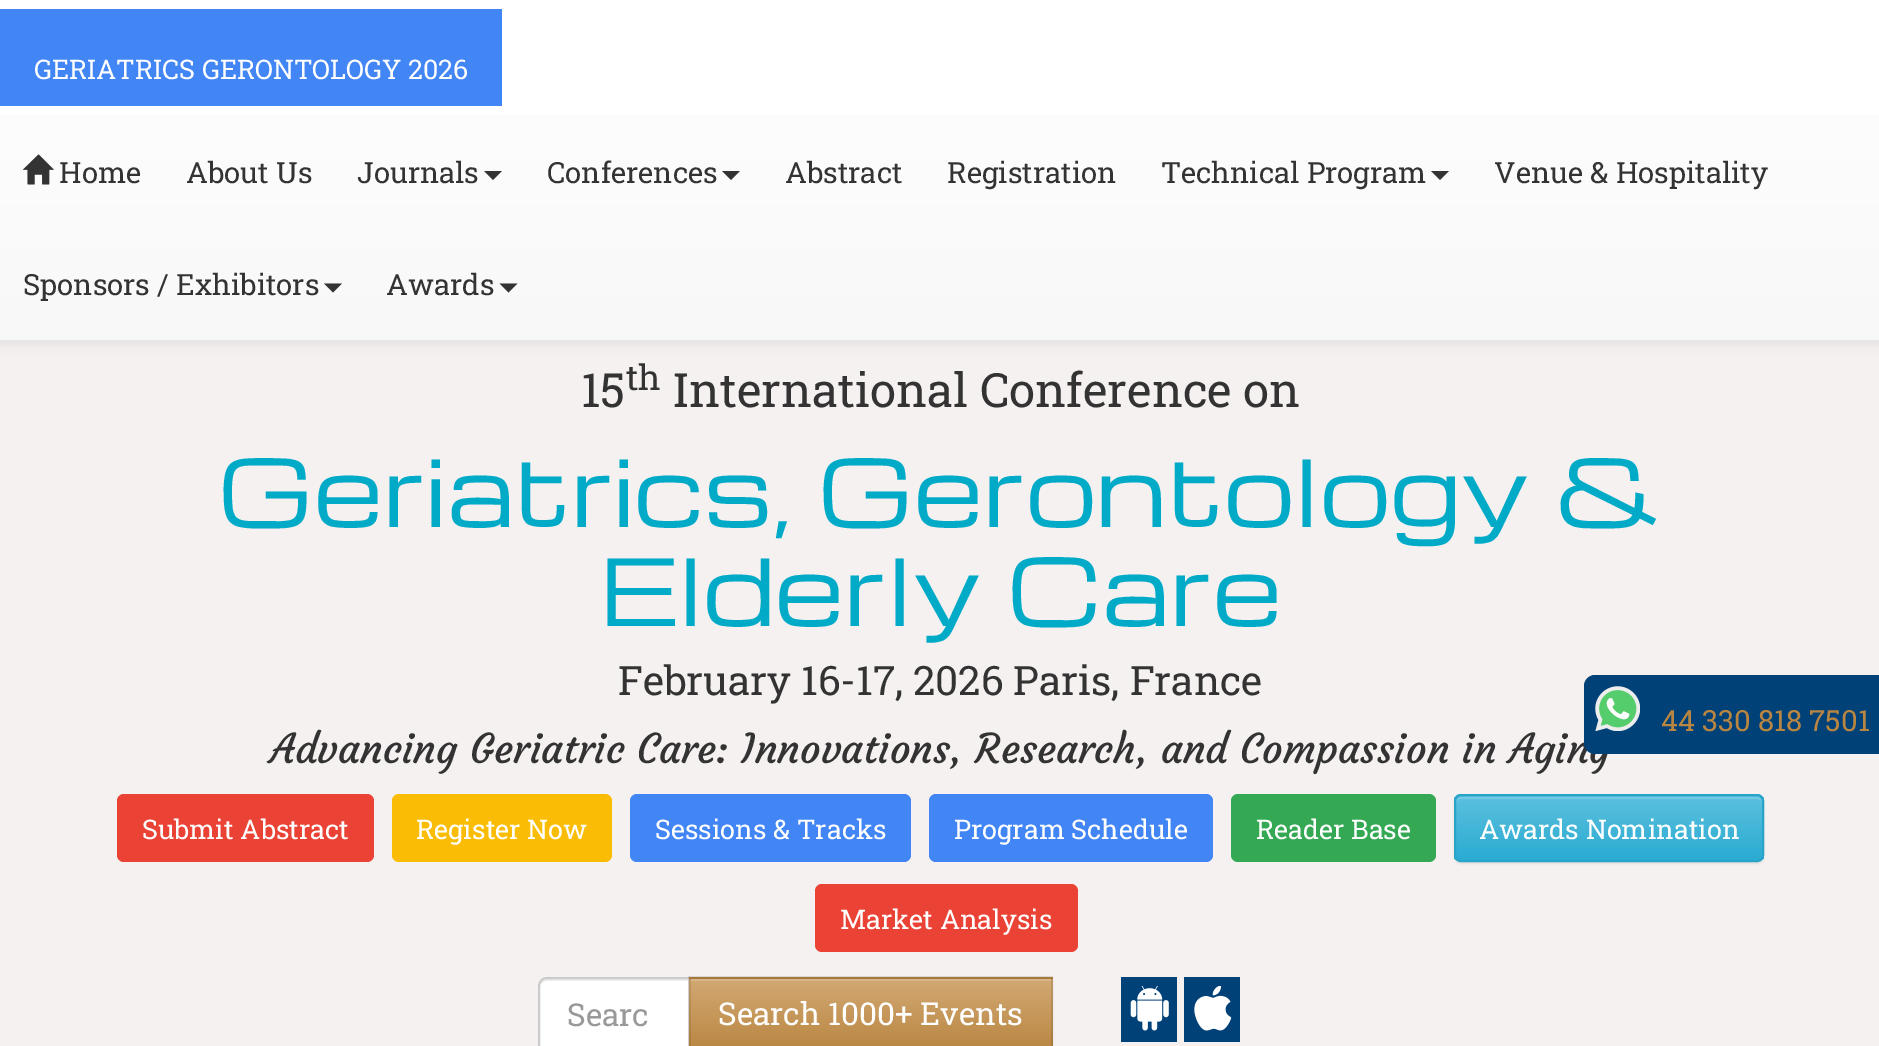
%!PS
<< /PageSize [1879 1046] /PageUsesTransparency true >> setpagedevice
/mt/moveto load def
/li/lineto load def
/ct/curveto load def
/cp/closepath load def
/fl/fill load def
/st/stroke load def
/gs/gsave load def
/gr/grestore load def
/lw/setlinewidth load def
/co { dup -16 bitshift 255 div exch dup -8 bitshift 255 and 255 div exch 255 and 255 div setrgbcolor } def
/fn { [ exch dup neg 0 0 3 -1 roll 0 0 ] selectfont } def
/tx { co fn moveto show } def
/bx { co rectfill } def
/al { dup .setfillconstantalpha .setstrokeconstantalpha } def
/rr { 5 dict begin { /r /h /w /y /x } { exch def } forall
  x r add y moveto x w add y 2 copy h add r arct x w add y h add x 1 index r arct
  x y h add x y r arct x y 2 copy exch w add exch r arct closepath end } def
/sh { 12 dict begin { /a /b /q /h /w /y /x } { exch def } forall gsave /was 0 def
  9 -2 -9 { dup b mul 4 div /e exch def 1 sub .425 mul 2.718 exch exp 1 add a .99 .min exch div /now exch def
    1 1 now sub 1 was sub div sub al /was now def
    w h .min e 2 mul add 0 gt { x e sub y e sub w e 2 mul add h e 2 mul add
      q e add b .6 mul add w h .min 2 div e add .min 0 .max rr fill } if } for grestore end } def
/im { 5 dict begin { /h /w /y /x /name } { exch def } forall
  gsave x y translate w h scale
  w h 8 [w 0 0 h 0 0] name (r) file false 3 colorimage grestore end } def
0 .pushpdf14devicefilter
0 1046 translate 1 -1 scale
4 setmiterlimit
0 0 1879 1046 16#F5F1F0 bx
16#000000 co
0 2 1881 342 0 5.5 .07 sh
gs 0 115 mt 1879 115 li 1879 340 li 0 340 li cp clip newpath
<< /ShadingType 2 /ColorSpace /DeviceRGB /Coords [941 0 941 340] /Extend [true true] /Function << /FunctionType 2 /Domain [0 1] /C0 [1 1 1] /C1 [.973 .973 .973] /N 1 >> >> shfill gr
0 340 1879 2 16#E7E7E7 bx
0 0 1879 115 16#FFFFFF bx
0 9 502 97 16#4285F4 bx
(media/1.raw) 22 154 32 31 im
16#333333 co
484 171 mt 502 171 li 493 180 li cp fl
722 171 mt 740 171 li 731 180 li cp fl
1431 171 mt 1449 171 li 1440 180 li cp fl
324 283.5 mt 342 283.5 li 333 292.5 li cp fl
499.5 283.5 mt 517.5 283.5 li 508.5 292.5 li cp fl
16#EA4335 co
117 794 257 68 7 rr fl
16#FBBC05 co
392 794 220 68 7 rr fl
16#4285F4 co
630 794 281 68 7 rr fl
929 794 284 68 7 rr fl
16#34A853 co
1231 794 205 68 7 rr fl
16#000000 co
1454 797 310 67 7 1 .07 sh
16#5BC0DE co
1454 794 310 68 7 rr fl
gs
1454 794 310 68 7 rr clip newpath
gs 1454 797 mt 1764 797 li 1764 860 li 1454 860 li cp clip newpath
<< /ShadingType 2 /ColorSpace /DeviceRGB /Coords [1609 797 1609 860] /Extend [true true] /Function << /FunctionType 2 /Domain [0 1] /C0 [.357 .753 .871] /C1 [.165 .671 .824] /N 1 >> >> shfill gr
gr
16#73C9E3 co
1460 799 mt 1757 799 li 1760 799 1762 801 1762 803 ct 1762 800 1760 797 1757 797 ct 1461 797 li 1458 797 1456 800 1456 803 ct 1456 801 1458 799 1460 799 ct cp fl
16#28A4C9 co
2 lw
1455 795 308 66 6 rr st
16#EA4335 co
815 884 263 68 7 rr fl
16#FFFFFF co
547 977 mt 691 977 li 691 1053 li 547 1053 li 542 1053 538 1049 538 1044 ct 538 986 li 538 981 542 977 547 977 ct cp fl
16#ECECEC co
547 981 mt 688 981 li 688 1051 li 689 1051 li 689 979 li 547 979 li 543 979 540 982 540 986 ct 540 988 li 540 984 543 981 547 981 ct cp fl
16#CCCCCC co
547 978 mt 690 978 li 690 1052 li 547 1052 li 542.5 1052 539 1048.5 539 1044 ct 539 986 li 539 981.5 542.5 978 547 978 ct cp st
16#000000 co
689 979 364 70 0 1 .07 sh
689 977 364 2 16#B98642 bx
gs 689 979 mt 1053 979 li 1053 1046 li 689 1046 li cp clip newpath
<< /ShadingType 2 /ColorSpace /DeviceRGB /Coords [871 979 871 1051] /Extend [true true] /Function << /FunctionType 2 /Domain [0 1] /C0 [.824 .663 .451] /C1 [.725 .525 .259] /N 1 >> >> shfill gr
691 979 360 2 16#D8B588 bx
0.1 al
16#000000 co
688 976 mt 1053 976 li 1051 979 li 691 979 li cp fl
1053 976 mt 1053 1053 li 1051 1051 li 1051 979 li cp fl
688 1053 mt 688 976 li 691 979 li 691 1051 li cp fl
1 al
1121 977 56 65 16#004178 bx
(media/2.raw) 1130 986 39 45 im
1184 977 56 65 16#004178 bx
(media/3.raw) 1194 986 38 45 im
(GERIATRICS GERONTOLOGY 2026) 34 79 /RobotoSlab-Regular 27 16#FFFFFF tx
(Home) 59 183 /RobotoSlab-Regular 29.25 16#333333 tx
(About Us) 186 183 /RobotoSlab-Regular 29.25 16#333333 tx
(Journals) 357 183 /RobotoSlab-Regular 29.25 16#333333 tx
(Conferences) 547 183 /RobotoSlab-Regular 29.25 16#333333 tx
(Abstract) 785 183 /RobotoSlab-Regular 29.25 16#333333 tx
(Registration) 947 183 /RobotoSlab-Regular 29.25 16#333333 tx
(Technical Program) 1161 183 /RobotoSlab-Regular 29.25 16#333333 tx
(Venue & Hospitality) 1494 183 /RobotoSlab-Regular 29.25 16#333333 tx
(Sponsors / Exhibitors) 23 295 /RobotoSlab-Regular 29.25 16#333333 tx
(Awards) 386 295 /RobotoSlab-Regular 29.25 16#333333 tx
(15) 581 407 /RobotoSlab-Regular 47.25 16#333333 tx
(th) 626 390 /RobotoSlab-Regular 35 16#333333 tx
(International Conference on) 673 407 /RobotoSlab-Regular 47.25 16#333333 tx
(Geriatrics, Gerontology &) 218 527 /Michroma-Regular 90 16#01AAC7 tx
(Elderly Care) 599 626 /Michroma-Regular 90 16#01AAC7 tx
(February 16-17, 2026 Paris, France) 618 695 /RobotoSlab-Regular 40.5 16#333333 tx
(Advancing Geriatric Care: Innovations, Research, and Compassion in Aging) 270 763 /Courgette-Regular 40.5 16#333333 tx
(Submit Abstract) 142 839 /RobotoSlab-Regular 27 16#FFFFFF tx
(Register Now) 416 839 /RobotoSlab-Regular 27 16#FFFFFF tx
(Sessions & Tracks) 655 839 /RobotoSlab-Regular 27 16#FFFFFF tx
(Program Schedule) 954 839 /RobotoSlab-Regular 27 16#FFFFFF tx
(Reader Base) 1256 839 /RobotoSlab-Regular 27 16#FFFFFF tx
(Awards Nomination) 1479 839 /RobotoSlab-Regular 27 16#FFFFFF tx
(Market Analysis) 840 929 /RobotoSlab-Regular 27 16#FFFFFF tx
(Searc) 567 1026 /RobotoSlab-Regular 31.5 16#999999 tx
(Search 1000+ Events) 718 1025 /RobotoSlab-Regular 31.5 16#FFFFFF tx
16#004178 co
1595 675 mt 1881 675 li 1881 754 li 1595 754 li 1589 754 1584 749 1584 743 ct 1584 686 li 1584 680 1589 675 1595 675 ct cp fl
(media/4.raw) 1595 686 45 45 im
(44 330 818 7501) 1661 731 /RobotoSlab-Regular 29.25 16#B98642 tx
.poppdf14devicefilter showpage
